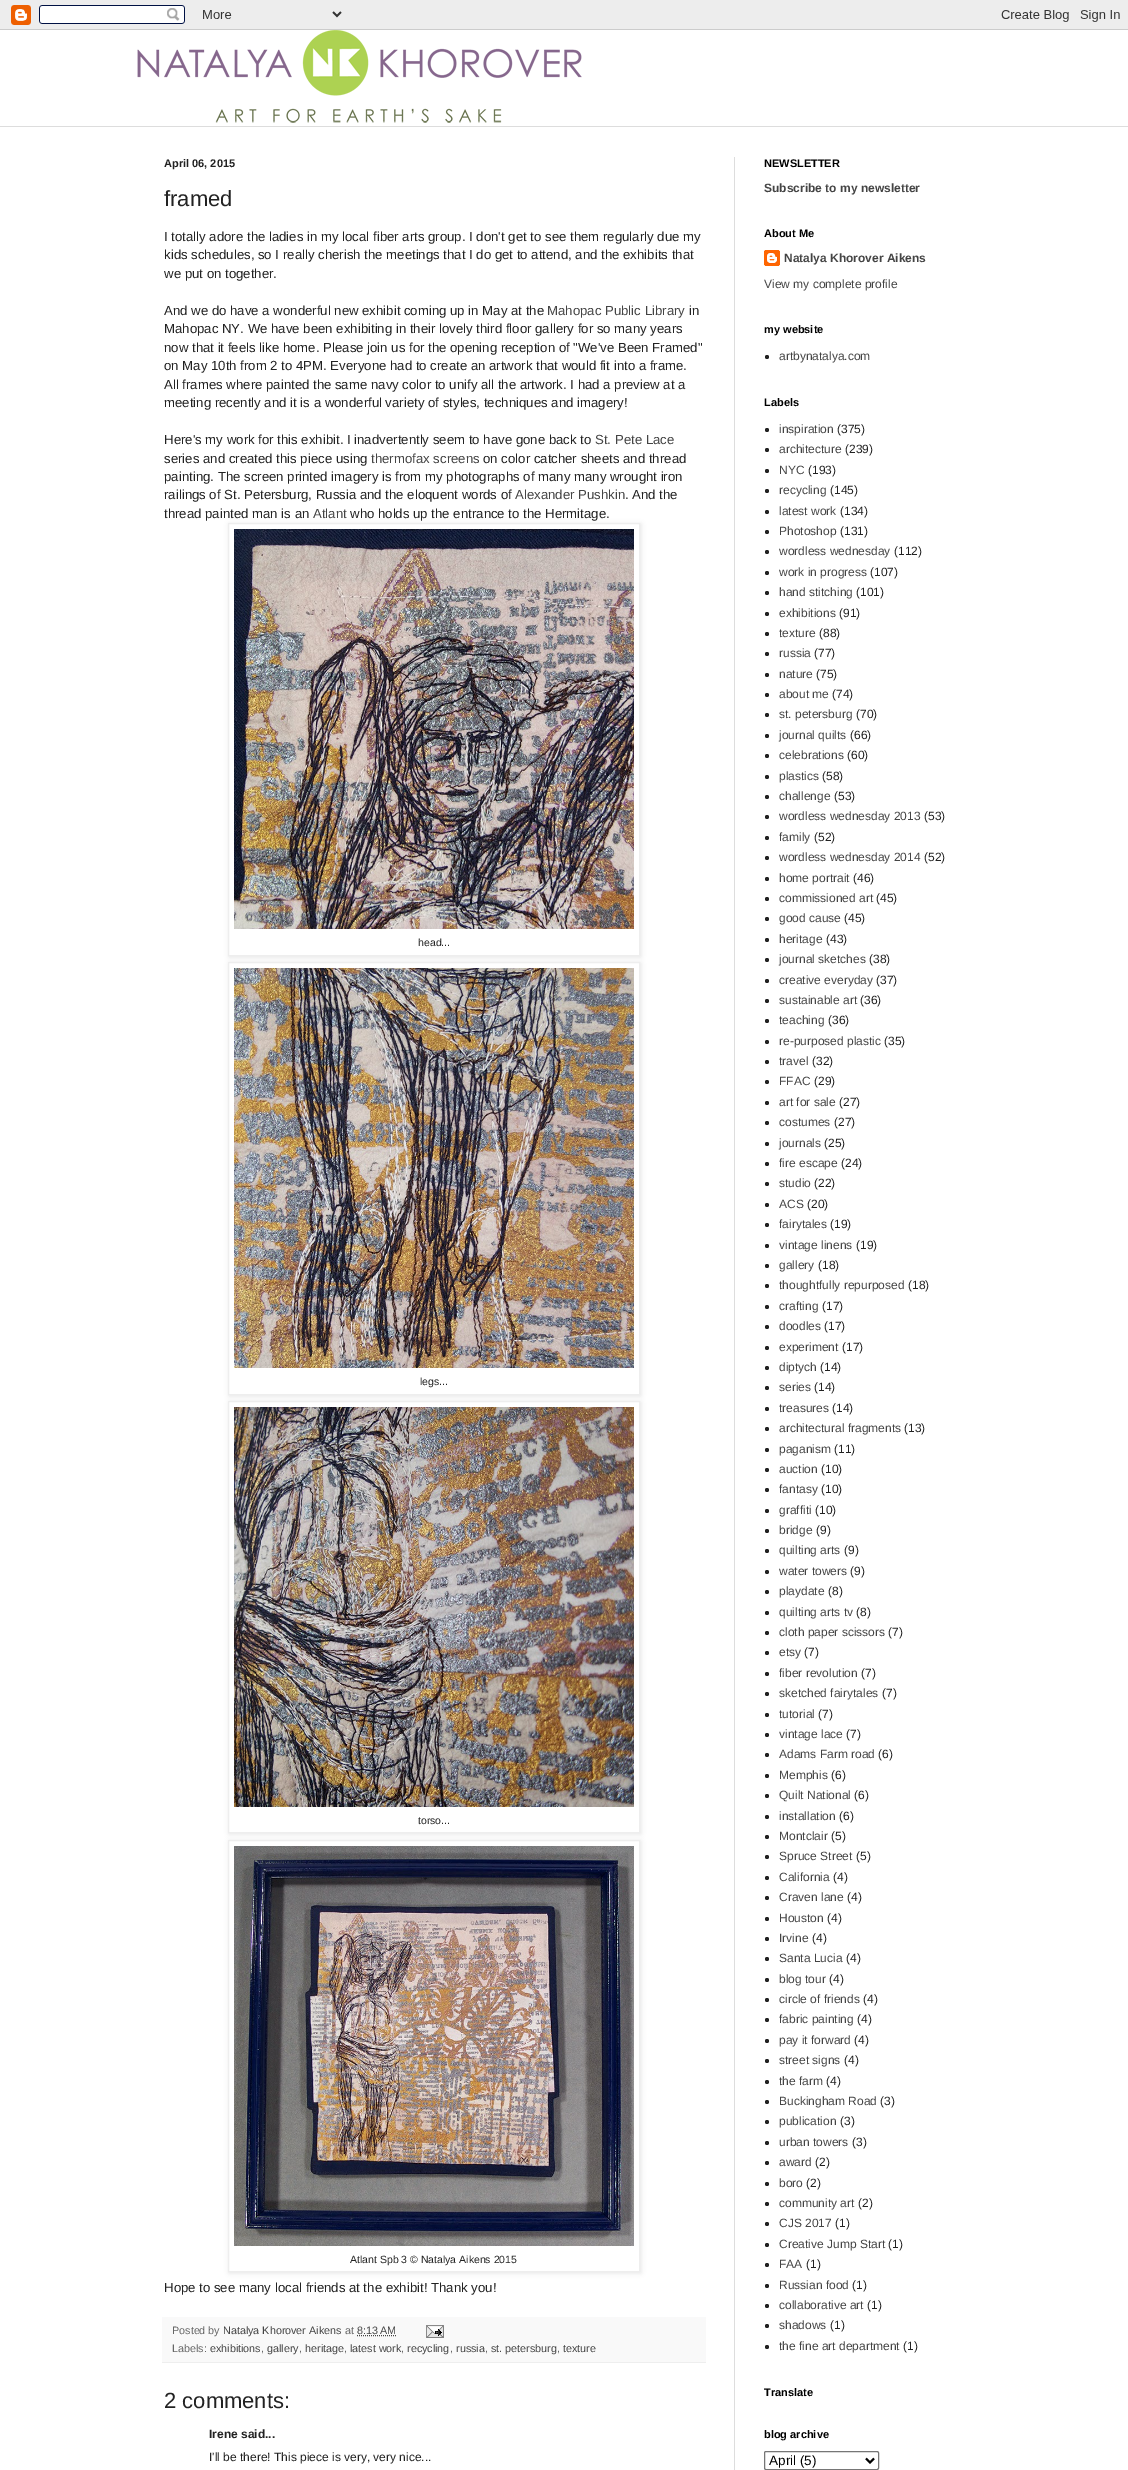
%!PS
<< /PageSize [1128 2470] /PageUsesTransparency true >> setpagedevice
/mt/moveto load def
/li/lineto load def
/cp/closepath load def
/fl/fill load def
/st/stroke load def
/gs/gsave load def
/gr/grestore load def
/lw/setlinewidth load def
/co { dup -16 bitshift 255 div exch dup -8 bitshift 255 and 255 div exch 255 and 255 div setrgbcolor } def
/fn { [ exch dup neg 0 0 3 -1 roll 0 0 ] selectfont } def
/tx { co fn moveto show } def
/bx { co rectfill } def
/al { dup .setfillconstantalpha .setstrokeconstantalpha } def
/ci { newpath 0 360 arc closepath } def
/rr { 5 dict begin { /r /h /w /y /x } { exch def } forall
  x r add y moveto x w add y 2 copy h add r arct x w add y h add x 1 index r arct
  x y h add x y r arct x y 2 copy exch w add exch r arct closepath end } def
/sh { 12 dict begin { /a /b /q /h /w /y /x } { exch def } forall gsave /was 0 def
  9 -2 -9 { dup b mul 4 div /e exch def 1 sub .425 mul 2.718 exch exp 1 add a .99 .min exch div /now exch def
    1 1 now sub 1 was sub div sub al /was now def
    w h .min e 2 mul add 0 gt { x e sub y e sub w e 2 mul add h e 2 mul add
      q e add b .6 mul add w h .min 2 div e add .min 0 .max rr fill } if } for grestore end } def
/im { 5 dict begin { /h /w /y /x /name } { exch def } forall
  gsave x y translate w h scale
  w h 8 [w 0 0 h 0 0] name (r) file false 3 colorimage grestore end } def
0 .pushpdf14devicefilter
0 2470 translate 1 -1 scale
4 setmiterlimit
0 0 1128 2470 16#FFFFFF bx
(media/1.raw) 0 0 1128 30 im
(media/2.raw) 137 30 445 93 im
0 126 1128 1 16#DDDDDD bx
734 157 1 2313 16#DDDDDD bx
gs
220 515 mt 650 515 li 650 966 li 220 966 li cp 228 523 mt 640 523 li 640 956 li 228 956 li cp eoclip newpath
16#000000 co
229 524 412 433 0 2.5 .1 sh
gr
16#EEEEEE co
228.5 523.5 411 432 rectstroke
(media/3.raw) 234 529 400 400 im
gs
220 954 mt 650 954 li 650 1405 li 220 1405 li cp 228 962 mt 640 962 li 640 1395 li 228 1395 li cp eoclip newpath
16#000000 co
229 963 412 433 0 2.5 .1 sh
gr
228.5 962.5 411 432 rectstroke
(media/4.raw) 234 968 400 400 im
gs
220 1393 mt 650 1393 li 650 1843 li 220 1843 li cp 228 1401 mt 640 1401 li 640 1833 li 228 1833 li cp eoclip newpath
16#000000 co
229 1402 412 432 0 2.5 .1 sh
gr
228.5 1401.5 411 431 rectstroke
(media/5.raw) 234 1407 400 400 im
gs
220 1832 mt 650 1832 li 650 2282 li 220 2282 li cp 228 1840 mt 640 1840 li 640 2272 li 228 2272 li cp eoclip newpath
16#000000 co
229 1841 412 432 0 2.5 .1 sh
gr
228.5 1840.5 411 431 rectstroke
(media/6.raw) 234 1846 400 400 im
162 2317 544 45 16#F9F9F9 bx
162 2362 544 1 16#EEEEEE bx
16#444444 co
[1 1] 0 setdash
357 2335.5 mt 396 2335.5 li st
(media/7.raw) 426 2325 18 13 im
(media/8.raw) 764 250 16 16 im
16#222222 co
767 357 2 ci fl
767 430 2 ci fl
767 450 2 ci fl
767 471 2 ci fl
767 491 2 ci fl
767 512 2 ci fl
767 532 2 ci fl
767 552 2 ci fl
767 573 2 ci fl
767 593 2 ci fl
767 614 2 ci fl
767 634 2 ci fl
767 654 2 ci fl
767 675 2 ci fl
767 695 2 ci fl
767 715 2 ci fl
767 736 2 ci fl
767 756 2 ci fl
767 777 2 ci fl
767 797 2 ci fl
767 817 2 ci fl
767 838 2 ci fl
767 858 2 ci fl
767 879 2 ci fl
767 899 2 ci fl
767 919 2 ci fl
767 940 2 ci fl
767 960 2 ci fl
767 981 2 ci fl
767 1001 2 ci fl
767 1021 2 ci fl
767 1042 2 ci fl
767 1062 2 ci fl
767 1082 2 ci fl
767 1103 2 ci fl
767 1123 2 ci fl
767 1144 2 ci fl
767 1164 2 ci fl
767 1184 2 ci fl
767 1205 2 ci fl
767 1225 2 ci fl
767 1246 2 ci fl
767 1266 2 ci fl
767 1286 2 ci fl
767 1307 2 ci fl
767 1327 2 ci fl
767 1348 2 ci fl
767 1368 2 ci fl
767 1388 2 ci fl
767 1409 2 ci fl
767 1429 2 ci fl
767 1450 2 ci fl
767 1470 2 ci fl
767 1490 2 ci fl
767 1511 2 ci fl
767 1531 2 ci fl
767 1551 2 ci fl
767 1572 2 ci fl
767 1592 2 ci fl
767 1613 2 ci fl
767 1633 2 ci fl
767 1653 2 ci fl
767 1674 2 ci fl
767 1694 2 ci fl
767 1715 2 ci fl
767 1735 2 ci fl
767 1755 2 ci fl
767 1776 2 ci fl
767 1796 2 ci fl
767 1817 2 ci fl
767 1837 2 ci fl
767 1857 2 ci fl
767 1878 2 ci fl
767 1898 2 ci fl
767 1919 2 ci fl
767 1939 2 ci fl
767 1959 2 ci fl
767 1980 2 ci fl
767 2000 2 ci fl
767 2020 2 ci fl
767 2041 2 ci fl
767 2061 2 ci fl
767 2082 2 ci fl
767 2102 2 ci fl
767 2122 2 ci fl
767 2143 2 ci fl
767 2163 2 ci fl
767 2184 2 ci fl
767 2204 2 ci fl
767 2224 2 ci fl
767 2245 2 ci fl
767 2265 2 ci fl
767 2286 2 ci fl
767 2306 2 ci fl
767 2326 2 ci fl
767 2347 2 ci fl
16#767676 co
[] 0 setdash
764.5 2451.5 114 18 1.5 rr st
16#000000 co
2 lw
866 2458.5 mt 870 2462.5 li 874 2458.5 li st
(April 06, 2015) 164 167 /LiberationSans-Bold 11 16#222222 tx
(framed) 164 206 /LiberationSans-Regular 22 16#222222 tx
(I totally adore the ladies in my local fiber arts group. I don't get to see them regularly due my) 164 241 /LiberationSans-Regular 13.2 16#222222 tx
(kids schedules, so I really cherish the meetings that I do get to attend, and the exhibits that) 164 259 /LiberationSans-Regular 13.2 16#222222 tx
(we put on together.) 164 278 /LiberationSans-Regular 13.2 16#222222 tx
(And we do have a wonderful new exhibit coming up in May at the) 164 315 /LiberationSans-Regular 13.2 16#222222 tx
(Mahopac Public Library) 547 315 /LiberationSans-Regular 13.2 16#444444 tx
(in) 689 315 /LiberationSans-Regular 13.2 16#222222 tx
(Mahopac NY. We have been exhibiting in their lovely third floor gallery for so many years) 164 333 /LiberationSans-Regular 13.2 16#222222 tx
(now that it feels like home. Please join us for the opening reception of "We've Been Framed") 164 352 /LiberationSans-Regular 13.2 16#222222 tx
(on May 10th from 2 to 4PM. Everyone had to create an artwork that would fit into a frame.) 164 370 /LiberationSans-Regular 13.2 16#222222 tx
(All frames where painted the same navy color to unify all the artwork. I had a preview at a) 164 389 /LiberationSans-Regular 13.2 16#222222 tx
(meeting recently and it is a wonderful variety of styles, techniques and imagery!) 164 407 /LiberationSans-Regular 13.2 16#222222 tx
(Here's my work for this exhibit. I inadvertently seem to have gone back to) 164 444 /LiberationSans-Regular 13.2 16#222222 tx
(St. Pete Lace) 595 444 /LiberationSans-Regular 13.2 16#444444 tx
(series and created this piece using) 164 463 /LiberationSans-Regular 13.2 16#222222 tx
(thermofax screens) 371 463 /LiberationSans-Regular 13.2 16#444444 tx
(on color catcher sheets and thread) 483 463 /LiberationSans-Regular 13.2 16#222222 tx
(painting. The screen printed imagery is from my photographs of many many wrought iron) 164 481 /LiberationSans-Regular 13.2 16#222222 tx
(railings of St. Petersburg, Russia and the eloquent words of) 164 499 /LiberationSans-Regular 13.2 16#222222 tx
(Alexander Pushkin) 515 499 /LiberationSans-Regular 13.2 16#444444 tx
(. And the) 625 499 /LiberationSans-Regular 13.2 16#222222 tx
(thread painted man is an) 164 518 /LiberationSans-Regular 13.2 16#222222 tx
(Atlant) 313 518 /LiberationSans-Regular 13.2 16#444444 tx
(who holds up the entrance to the Hermitage.) 350 518 /LiberationSans-Regular 13.2 16#222222 tx
(head...) 418 946 /LiberationSans-Regular 10.5 16#222222 tx
(legs...) 420 1385 /LiberationSans-Regular 10.5 16#222222 tx
(torso...) 418 1824 /LiberationSans-Regular 10.5 16#222222 tx
(Atlant Spb 3 © Natalya Aikens 2015) 350 2263 /LiberationSans-Regular 10.5 16#222222 tx
(Hope to see many local friends at the exhibit! Thank you!) 164 2292 /LiberationSans-Regular 13.2 16#222222 tx
(Posted by) 172 2334 /LiberationSans-Regular 10.75 16#666666 tx
(Natalya Khorover Aikens) 223 2334 /LiberationSans-Regular 10.75 16#444444 tx
(at) 345 2334 /LiberationSans-Regular 10.75 16#666666 tx
(8:13 AM) 357 2334 /LiberationSans-Regular 10.75 16#444444 tx
(Labels:) 172 2352 /LiberationSans-Regular 10.75 16#666666 tx
(exhibitions) 210 2352 /LiberationSans-Regular 10.75 16#444444 tx
(,) 261 2352 /LiberationSans-Regular 10.75 16#666666 tx
(gallery) 267 2352 /LiberationSans-Regular 10.75 16#444444 tx
(,) 299 2352 /LiberationSans-Regular 10.75 16#666666 tx
(heritage) 305 2352 /LiberationSans-Regular 10.75 16#444444 tx
(,) 344 2352 /LiberationSans-Regular 10.75 16#666666 tx
(latest work) 350 2352 /LiberationSans-Regular 10.75 16#444444 tx
(,) 401 2352 /LiberationSans-Regular 10.75 16#666666 tx
(recycling) 407 2352 /LiberationSans-Regular 10.75 16#444444 tx
(,) 450 2352 /LiberationSans-Regular 10.75 16#666666 tx
(russia) 456 2352 /LiberationSans-Regular 10.75 16#444444 tx
(,) 485 2352 /LiberationSans-Regular 10.75 16#666666 tx
(st. petersburg) 491 2352 /LiberationSans-Regular 10.75 16#444444 tx
(,) 557 2352 /LiberationSans-Regular 10.75 16#666666 tx
(texture) 563 2352 /LiberationSans-Regular 10.75 16#444444 tx
(2 comments:) 164 2408 /LiberationSans-Regular 22 16#222222 tx
(Irene said...) 209 2438 /LiberationSans-Bold 12 16#222222 tx
(I'll be there! This piece is very, very nice...) 209 2461 /LiberationSans-Regular 12 16#222222 tx
(NEWSLETTER) 764 167 /LiberationSans-Bold 11 16#000000 tx
(Subscribe to my newsletter) 764 192 /LiberationSans-Bold 12 16#444444 tx
(About Me) 764 237 /LiberationSans-Bold 11 16#000000 tx
(Natalya Khorover Aikens) 784 262 /LiberationSans-Bold 12 16#444444 tx
(View my complete profile) 764 288 /LiberationSans-Regular 12 16#444444 tx
(my website) 764 333 /LiberationSans-Bold 11 16#000000 tx
(artbynatalya.com) 779 360 /LiberationSans-Regular 12 16#444444 tx
(Labels) 764 406 /LiberationSans-Bold 11 16#000000 tx
(inspiration) 779 433 /LiberationSans-Regular 12 16#444444 tx
(\(375\)) 837 433 /LiberationSans-Regular 12 16#222222 tx
(architecture) 779 453 /LiberationSans-Regular 12 16#444444 tx
(\(239\)) 845 453 /LiberationSans-Regular 12 16#222222 tx
(NYC) 779 474 /LiberationSans-Regular 12 16#444444 tx
(\(193\)) 808 474 /LiberationSans-Regular 12 16#222222 tx
(recycling) 779 494 /LiberationSans-Regular 12 16#444444 tx
(\(145\)) 830 494 /LiberationSans-Regular 12 16#222222 tx
(latest work) 779 515 /LiberationSans-Regular 12 16#444444 tx
(\(134\)) 840 515 /LiberationSans-Regular 12 16#222222 tx
(Photoshop) 779 535 /LiberationSans-Regular 12 16#444444 tx
(\(131\)) 840 535 /LiberationSans-Regular 12 16#222222 tx
(wordless wednesday) 779 555 /LiberationSans-Regular 12 16#444444 tx
(\(112\)) 894 555 /LiberationSans-Regular 12 16#222222 tx
(work in progress) 779 576 /LiberationSans-Regular 12 16#444444 tx
(\(107\)) 870 576 /LiberationSans-Regular 12 16#222222 tx
(hand stitching) 779 596 /LiberationSans-Regular 12 16#444444 tx
(\(101\)) 856 596 /LiberationSans-Regular 12 16#222222 tx
(exhibitions) 779 617 /LiberationSans-Regular 12 16#444444 tx
(\(91\)) 839 617 /LiberationSans-Regular 12 16#222222 tx
(texture) 779 637 /LiberationSans-Regular 12 16#444444 tx
(\(88\)) 819 637 /LiberationSans-Regular 12 16#222222 tx
(russia) 779 657 /LiberationSans-Regular 12 16#444444 tx
(\(77\)) 814 657 /LiberationSans-Regular 12 16#222222 tx
(nature) 779 678 /LiberationSans-Regular 12 16#444444 tx
(\(75\)) 816 678 /LiberationSans-Regular 12 16#222222 tx
(about me) 779 698 /LiberationSans-Regular 12 16#444444 tx
(\(74\)) 832 698 /LiberationSans-Regular 12 16#222222 tx
(st. petersburg) 779 718 /LiberationSans-Regular 12 16#444444 tx
(\(70\)) 856 718 /LiberationSans-Regular 12 16#222222 tx
(journal quilts) 779 739 /LiberationSans-Regular 12 16#444444 tx
(\(66\)) 850 739 /LiberationSans-Regular 12 16#222222 tx
(celebrations) 779 759 /LiberationSans-Regular 12 16#444444 tx
(\(60\)) 847 759 /LiberationSans-Regular 12 16#222222 tx
(plastics) 779 780 /LiberationSans-Regular 12 16#444444 tx
(\(58\)) 822 780 /LiberationSans-Regular 12 16#222222 tx
(challenge) 779 800 /LiberationSans-Regular 12 16#444444 tx
(\(53\)) 834 800 /LiberationSans-Regular 12 16#222222 tx
(wordless wednesday 2013) 779 820 /LiberationSans-Regular 12 16#444444 tx
(\(53\)) 924 820 /LiberationSans-Regular 12 16#222222 tx
(family) 779 841 /LiberationSans-Regular 12 16#444444 tx
(\(52\)) 814 841 /LiberationSans-Regular 12 16#222222 tx
(wordless wednesday 2014) 779 861 /LiberationSans-Regular 12 16#444444 tx
(\(52\)) 924 861 /LiberationSans-Regular 12 16#222222 tx
(home portrait) 779 882 /LiberationSans-Regular 12 16#444444 tx
(\(46\)) 853 882 /LiberationSans-Regular 12 16#222222 tx
(commissioned art) 779 902 /LiberationSans-Regular 12 16#444444 tx
(\(45\)) 876 902 /LiberationSans-Regular 12 16#222222 tx
(good cause) 779 922 /LiberationSans-Regular 12 16#444444 tx
(\(45\)) 844 922 /LiberationSans-Regular 12 16#222222 tx
(heritage) 779 943 /LiberationSans-Regular 12 16#444444 tx
(\(43\)) 826 943 /LiberationSans-Regular 12 16#222222 tx
(journal sketches) 779 963 /LiberationSans-Regular 12 16#444444 tx
(\(38\)) 869 963 /LiberationSans-Regular 12 16#222222 tx
(creative everyday) 779 984 /LiberationSans-Regular 12 16#444444 tx
(\(37\)) 876 984 /LiberationSans-Regular 12 16#222222 tx
(sustainable art) 779 1004 /LiberationSans-Regular 12 16#444444 tx
(\(36\)) 860 1004 /LiberationSans-Regular 12 16#222222 tx
(teaching) 779 1024 /LiberationSans-Regular 12 16#444444 tx
(\(36\)) 828 1024 /LiberationSans-Regular 12 16#222222 tx
(re-purposed plastic) 779 1045 /LiberationSans-Regular 12 16#444444 tx
(\(35\)) 884 1045 /LiberationSans-Regular 12 16#222222 tx
(travel) 779 1065 /LiberationSans-Regular 12 16#444444 tx
(\(32\)) 812 1065 /LiberationSans-Regular 12 16#222222 tx
(FFAC) 779 1085 /LiberationSans-Regular 12 16#444444 tx
(\(29\)) 814 1085 /LiberationSans-Regular 12 16#222222 tx
(art for sale) 779 1106 /LiberationSans-Regular 12 16#444444 tx
(\(27\)) 839 1106 /LiberationSans-Regular 12 16#222222 tx
(costumes) 779 1126 /LiberationSans-Regular 12 16#444444 tx
(\(27\)) 834 1126 /LiberationSans-Regular 12 16#222222 tx
(journals) 779 1147 /LiberationSans-Regular 12 16#444444 tx
(\(25\)) 824 1147 /LiberationSans-Regular 12 16#222222 tx
(fire escape) 779 1167 /LiberationSans-Regular 12 16#444444 tx
(\(24\)) 841 1167 /LiberationSans-Regular 12 16#222222 tx
(studio) 779 1187 /LiberationSans-Regular 12 16#444444 tx
(\(22\)) 814 1187 /LiberationSans-Regular 12 16#222222 tx
(ACS) 779 1208 /LiberationSans-Regular 12 16#444444 tx
(\(20\)) 807 1208 /LiberationSans-Regular 12 16#222222 tx
(fairytales) 779 1228 /LiberationSans-Regular 12 16#444444 tx
(\(19\)) 830 1228 /LiberationSans-Regular 12 16#222222 tx
(vintage linens) 779 1249 /LiberationSans-Regular 12 16#444444 tx
(\(19\)) 856 1249 /LiberationSans-Regular 12 16#222222 tx
(gallery) 779 1269 /LiberationSans-Regular 12 16#444444 tx
(\(18\)) 818 1269 /LiberationSans-Regular 12 16#222222 tx
(thoughtfully repurposed) 779 1289 /LiberationSans-Regular 12 16#444444 tx
(\(18\)) 908 1289 /LiberationSans-Regular 12 16#222222 tx
(crafting) 779 1310 /LiberationSans-Regular 12 16#444444 tx
(\(17\)) 822 1310 /LiberationSans-Regular 12 16#222222 tx
(doodles) 779 1330 /LiberationSans-Regular 12 16#444444 tx
(\(17\)) 824 1330 /LiberationSans-Regular 12 16#222222 tx
(experiment) 779 1351 /LiberationSans-Regular 12 16#444444 tx
(\(17\)) 842 1351 /LiberationSans-Regular 12 16#222222 tx
(diptych) 779 1371 /LiberationSans-Regular 12 16#444444 tx
(\(14\)) 820 1371 /LiberationSans-Regular 12 16#222222 tx
(series) 779 1391 /LiberationSans-Regular 12 16#444444 tx
(\(14\)) 814 1391 /LiberationSans-Regular 12 16#222222 tx
(treasures) 779 1412 /LiberationSans-Regular 12 16#444444 tx
(\(14\)) 832 1412 /LiberationSans-Regular 12 16#222222 tx
(architectural fragments) 779 1432 /LiberationSans-Regular 12 16#444444 tx
(\(13\)) 904 1432 /LiberationSans-Regular 12 16#222222 tx
(paganism) 779 1453 /LiberationSans-Regular 12 16#444444 tx
(\(11\)) 834 1453 /LiberationSans-Regular 12 16#222222 tx
(auction) 779 1473 /LiberationSans-Regular 12 16#444444 tx
(\(10\)) 821 1473 /LiberationSans-Regular 12 16#222222 tx
(fantasy) 779 1493 /LiberationSans-Regular 12 16#444444 tx
(\(10\)) 821 1493 /LiberationSans-Regular 12 16#222222 tx
(graffiti) 779 1514 /LiberationSans-Regular 12 16#444444 tx
(\(10\)) 815 1514 /LiberationSans-Regular 12 16#222222 tx
(bridge) 779 1534 /LiberationSans-Regular 12 16#444444 tx
(\(9\)) 816 1534 /LiberationSans-Regular 12 16#222222 tx
(quilting arts) 779 1554 /LiberationSans-Regular 12 16#444444 tx
(\(9\)) 844 1554 /LiberationSans-Regular 12 16#222222 tx
(water towers) 779 1575 /LiberationSans-Regular 12 16#444444 tx
(\(9\)) 850 1575 /LiberationSans-Regular 12 16#222222 tx
(playdate) 779 1595 /LiberationSans-Regular 12 16#444444 tx
(\(8\)) 828 1595 /LiberationSans-Regular 12 16#222222 tx
(quilting arts tv) 779 1616 /LiberationSans-Regular 12 16#444444 tx
(\(8\)) 856 1616 /LiberationSans-Regular 12 16#222222 tx
(cloth paper scissors) 779 1636 /LiberationSans-Regular 12 16#444444 tx
(\(7\)) 888 1636 /LiberationSans-Regular 12 16#222222 tx
(etsy) 779 1656 /LiberationSans-Regular 12 16#444444 tx
(\(7\)) 804 1656 /LiberationSans-Regular 12 16#222222 tx
(fiber revolution) 779 1677 /LiberationSans-Regular 12 16#444444 tx
(\(7\)) 861 1677 /LiberationSans-Regular 12 16#222222 tx
(sketched fairytales) 779 1697 /LiberationSans-Regular 12 16#444444 tx
(\(7\)) 882 1697 /LiberationSans-Regular 12 16#222222 tx
(tutorial) 779 1718 /LiberationSans-Regular 12 16#444444 tx
(\(7\)) 818 1718 /LiberationSans-Regular 12 16#222222 tx
(vintage lace) 779 1738 /LiberationSans-Regular 12 16#444444 tx
(\(7\)) 846 1738 /LiberationSans-Regular 12 16#222222 tx
(Adams Farm road) 779 1758 /LiberationSans-Regular 12 16#444444 tx
(\(6\)) 878 1758 /LiberationSans-Regular 12 16#222222 tx
(Memphis) 779 1779 /LiberationSans-Regular 12 16#444444 tx
(\(6\)) 831 1779 /LiberationSans-Regular 12 16#222222 tx
(Quilt National) 779 1799 /LiberationSans-Regular 12 16#444444 tx
(\(6\)) 854 1799 /LiberationSans-Regular 12 16#222222 tx
(installation) 779 1820 /LiberationSans-Regular 12 16#444444 tx
(\(6\)) 839 1820 /LiberationSans-Regular 12 16#222222 tx
(Montclair) 779 1840 /LiberationSans-Regular 12 16#444444 tx
(\(5\)) 831 1840 /LiberationSans-Regular 12 16#222222 tx
(Spruce Street) 779 1860 /LiberationSans-Regular 12 16#444444 tx
(\(5\)) 856 1860 /LiberationSans-Regular 12 16#222222 tx
(California) 779 1881 /LiberationSans-Regular 12 16#444444 tx
(\(4\)) 833 1881 /LiberationSans-Regular 12 16#222222 tx
(Craven lane) 779 1901 /LiberationSans-Regular 12 16#444444 tx
(\(4\)) 847 1901 /LiberationSans-Regular 12 16#222222 tx
(Houston) 779 1922 /LiberationSans-Regular 12 16#444444 tx
(\(4\)) 827 1922 /LiberationSans-Regular 12 16#222222 tx
(Irvine) 779 1942 /LiberationSans-Regular 12 16#444444 tx
(\(4\)) 812 1942 /LiberationSans-Regular 12 16#222222 tx
(Santa Lucia) 779 1962 /LiberationSans-Regular 12 16#444444 tx
(\(4\)) 846 1962 /LiberationSans-Regular 12 16#222222 tx
(blog tour) 779 1983 /LiberationSans-Regular 12 16#444444 tx
(\(4\)) 829 1983 /LiberationSans-Regular 12 16#222222 tx
(circle of friends) 779 2003 /LiberationSans-Regular 12 16#444444 tx
(\(4\)) 863 2003 /LiberationSans-Regular 12 16#222222 tx
(fabric painting) 779 2023 /LiberationSans-Regular 12 16#444444 tx
(\(4\)) 857 2023 /LiberationSans-Regular 12 16#222222 tx
(pay it forward) 779 2044 /LiberationSans-Regular 12 16#444444 tx
(\(4\)) 854 2044 /LiberationSans-Regular 12 16#222222 tx
(street signs) 779 2064 /LiberationSans-Regular 12 16#444444 tx
(\(4\)) 844 2064 /LiberationSans-Regular 12 16#222222 tx
(the farm) 779 2085 /LiberationSans-Regular 12 16#444444 tx
(\(4\)) 826 2085 /LiberationSans-Regular 12 16#222222 tx
(Buckingham Road) 779 2105 /LiberationSans-Regular 12 16#444444 tx
(\(3\)) 880 2105 /LiberationSans-Regular 12 16#222222 tx
(publication) 779 2125 /LiberationSans-Regular 12 16#444444 tx
(\(3\)) 840 2125 /LiberationSans-Regular 12 16#222222 tx
(urban towers) 779 2146 /LiberationSans-Regular 12 16#444444 tx
(\(3\)) 852 2146 /LiberationSans-Regular 12 16#222222 tx
(award) 779 2166 /LiberationSans-Regular 12 16#444444 tx
(\(2\)) 815 2166 /LiberationSans-Regular 12 16#222222 tx
(boro) 779 2187 /LiberationSans-Regular 12 16#444444 tx
(\(2\)) 806 2187 /LiberationSans-Regular 12 16#222222 tx
(community art) 779 2207 /LiberationSans-Regular 12 16#444444 tx
(\(2\)) 858 2207 /LiberationSans-Regular 12 16#222222 tx
(CJS 2017) 779 2227 /LiberationSans-Regular 12 16#444444 tx
(\(1\)) 835 2227 /LiberationSans-Regular 12 16#222222 tx
(Creative Jump Start) 779 2248 /LiberationSans-Regular 12 16#444444 tx
(\(1\)) 888 2248 /LiberationSans-Regular 12 16#222222 tx
(FAA) 779 2268 /LiberationSans-Regular 12 16#444444 tx
(\(1\)) 806 2268 /LiberationSans-Regular 12 16#222222 tx
(Russian food) 779 2289 /LiberationSans-Regular 12 16#444444 tx
(\(1\)) 852 2289 /LiberationSans-Regular 12 16#222222 tx
(collaborative art) 779 2309 /LiberationSans-Regular 12 16#444444 tx
(\(1\)) 867 2309 /LiberationSans-Regular 12 16#222222 tx
(shadows) 779 2329 /LiberationSans-Regular 12 16#444444 tx
(\(1\)) 830 2329 /LiberationSans-Regular 12 16#222222 tx
(the fine art department) 779 2350 /LiberationSans-Regular 12 16#444444 tx
(\(1\)) 903 2350 /LiberationSans-Regular 12 16#222222 tx
(Translate) 764 2396 /LiberationSans-Bold 11 16#000000 tx
(blog archive) 764 2438 /LiberationSans-Bold 11 16#000000 tx
(April \(5\)) 769 2465 /LiberationSans-Regular 13.5 16#000000 tx
.poppdf14devicefilter showpage
